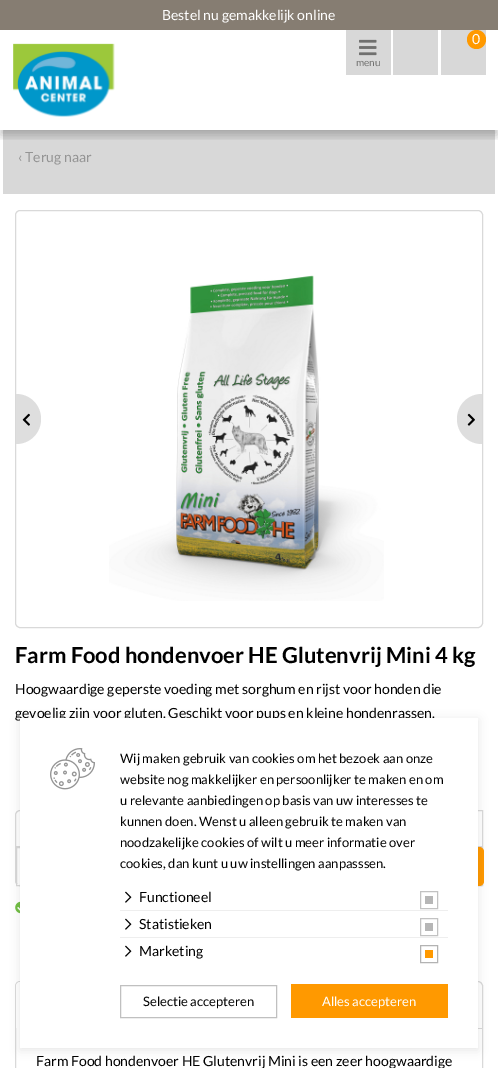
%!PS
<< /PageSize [498 1068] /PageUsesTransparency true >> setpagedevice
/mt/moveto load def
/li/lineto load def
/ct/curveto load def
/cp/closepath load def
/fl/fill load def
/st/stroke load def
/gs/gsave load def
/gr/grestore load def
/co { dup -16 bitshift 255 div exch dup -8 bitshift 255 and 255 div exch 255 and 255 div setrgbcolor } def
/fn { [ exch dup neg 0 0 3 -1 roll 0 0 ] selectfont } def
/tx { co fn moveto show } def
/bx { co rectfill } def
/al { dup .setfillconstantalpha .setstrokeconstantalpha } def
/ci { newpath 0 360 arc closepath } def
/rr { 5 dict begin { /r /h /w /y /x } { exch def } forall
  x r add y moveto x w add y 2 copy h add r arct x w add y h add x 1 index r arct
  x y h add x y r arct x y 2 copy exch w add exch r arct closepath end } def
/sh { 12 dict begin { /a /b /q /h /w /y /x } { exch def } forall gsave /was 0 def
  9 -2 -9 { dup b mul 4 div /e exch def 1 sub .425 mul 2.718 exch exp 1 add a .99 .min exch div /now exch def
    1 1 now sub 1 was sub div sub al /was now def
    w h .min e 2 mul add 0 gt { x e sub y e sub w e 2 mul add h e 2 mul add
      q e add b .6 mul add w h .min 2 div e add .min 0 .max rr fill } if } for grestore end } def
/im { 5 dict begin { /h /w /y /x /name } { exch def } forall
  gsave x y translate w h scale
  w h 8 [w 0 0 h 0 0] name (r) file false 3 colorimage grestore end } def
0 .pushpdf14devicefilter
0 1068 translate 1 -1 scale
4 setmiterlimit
0 0 498 1068 16#FFFFFF bx
3 130 492 64 16#D8D8D8 bx
gs
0 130 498 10 rectclip
16#000000 co
0 5 498 130 0 5 .12 sh
0 5 498 130 0 5 .12 sh
gr
0 0 498 30 16#867D72 bx
(media/1.raw) 13 43 102 74 im
393 30 45 45 16#D8D8D8 bx
441 30 45 45 16#D8D8D8 bx
16#FF9900 co
476.5 39.5 9.5 ci fl
346 30 45 45 16#D8D8D8 bx
(media/2.raw) 359 39 18 17 im
16#D9D9D9 co
15.5 210.5 467 417 4.5 rr st
16#DEDEDE co
16 394 mt 30 394 41 405 41 419 ct 41 433 30 444 16 444 ct cp fl
(media/3.raw) 22 413 8 13 im
(media/4.raw) 109 275 275 326 im
482 394 mt 482 444 li 468 444 457 433 457 419 ct 457 405 468 394 482 394 ct cp fl
(media/5.raw) 467 413 8 13 im
16#D9D9D9 co
20 810.5 mt 482.5 810.5 li 482.5 885.5 li 20 885.5 li 17.5 885.5 15.5 883.5 15.5 881 ct 15.5 815 li 15.5 812.5 17.5 810.5 20 810.5 ct cp st
16 846 466 1 16#D9D9D9 bx
17 884 2 1 16#FFFFFF bx
16#D9D9D9 co
16.5 847.5 465 38 rectstroke
16#FF9900 co
368 847 mt 479 847 li 482 847 484 849 484 852 ct 484 881 li 484 884 482 886 479 886 ct 368 886 li cp fl
(media/6.raw) 15 901 5 13 im
16#D9D9D9 co
15.5 981.5 467 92 4.5 rr st
478 1028 4 1 16#D9D9D9 bx
16#FFFFFF co
20 982 mt 130 982 li 130 1028 li 16 1028 li 16 986 li 16 984 18 982 20 982 ct cp fl
16#000000 co
20 720 458 330 0 5 .1 sh
(Bestel nu gemakkelijk online) 162 20 /Lato-Regular 14 16#FFFFFF tx
(0) 472 44 /Lato-Regular 14 16#FFFFFF tx
(menu) 356 66 /Lato-Regular 10 16#70706F tx
(‹ Terug naar) 18 162 /Lato-Regular 14 16#949494 tx
(Farm Food hondenvoer HE Glutenvrij Mini 4 kg) 15 663 /Lato-Bold 22 16#000000 tx
(Hoogwaardige geperste voeding met sorghum en rijst voor honden die) 15 694 /Lato-Regular 14 16#000000 tx
(gevoelig zijn voor gluten. Geschikt voor pups en kleine hondenrassen.) 15 718 /Lato-Regular 14 16#000000 tx
(Farm Food hondenvoer HE Glutenvrij Mini is een zeer hoogwaardige) 36 1066 /Lato-Regular 14 16#000000 tx
20 718 458 330 16#FFFFFF bx
(media/7.raw) 50 748 45 42 im
(Wij maken gebruik van cookies om het bezoek aan onze) 120 763 /Lato-Regular 13 16#000000 tx
(website nog makkelijker en persoonlijker te maken en om) 120 784 /Lato-Regular 13 16#000000 tx
(u relevante aanbiedingen op basis van uw interesses te) 120 805 /Lato-Regular 13 16#000000 tx
(kunnen doen. Wenst u alleen gebruik te maken van) 120 826 /Lato-Regular 13 16#000000 tx
(noodzakelijke cookies of wilt u meer informatie over) 120 847 /Lato-Regular 13 16#000000 tx
(cookies, dan kunt u uw instellingen aanpasssen.) 120 868 /Lato-Regular 13 16#000000 tx
(media/8.raw) 125 891 7 12 im
(Functioneel) 139 902 /Lato-Regular 14 16#000000 tx
16#C2C2C2 co
420.5 891.5 17 17 rectstroke
425 896 8 8 16#B6B6B6 bx
120 910 328 1 16#EEEEEE bx
(media/8.raw) 125 918 7 12 im
(Statistieken) 139 929 /Lato-Regular 14 16#000000 tx
16#C2C2C2 co
420.5 918.5 17 17 rectstroke
425 923 8 8 16#B6B6B6 bx
120 937 328 1 16#EEEEEE bx
(media/8.raw) 125 945 7 12 im
(Marketing) 139 956 /Lato-Regular 14 16#000000 tx
16#B3B3B3 co
420.5 945.5 17 17 rectstroke
425 950 8 8 16#FF9900 bx
16#C0C0C0 co
120.5 985.5 156 32 rectstroke
(Selectie accepteren) 143 1006 /Lato-Regular 13 16#000000 tx
291 984 157 34 16#FF9900 bx
(Alles accepteren) 322 1006 /Lato-Regular 13 16#FFFFFF tx
.poppdf14devicefilter showpage
